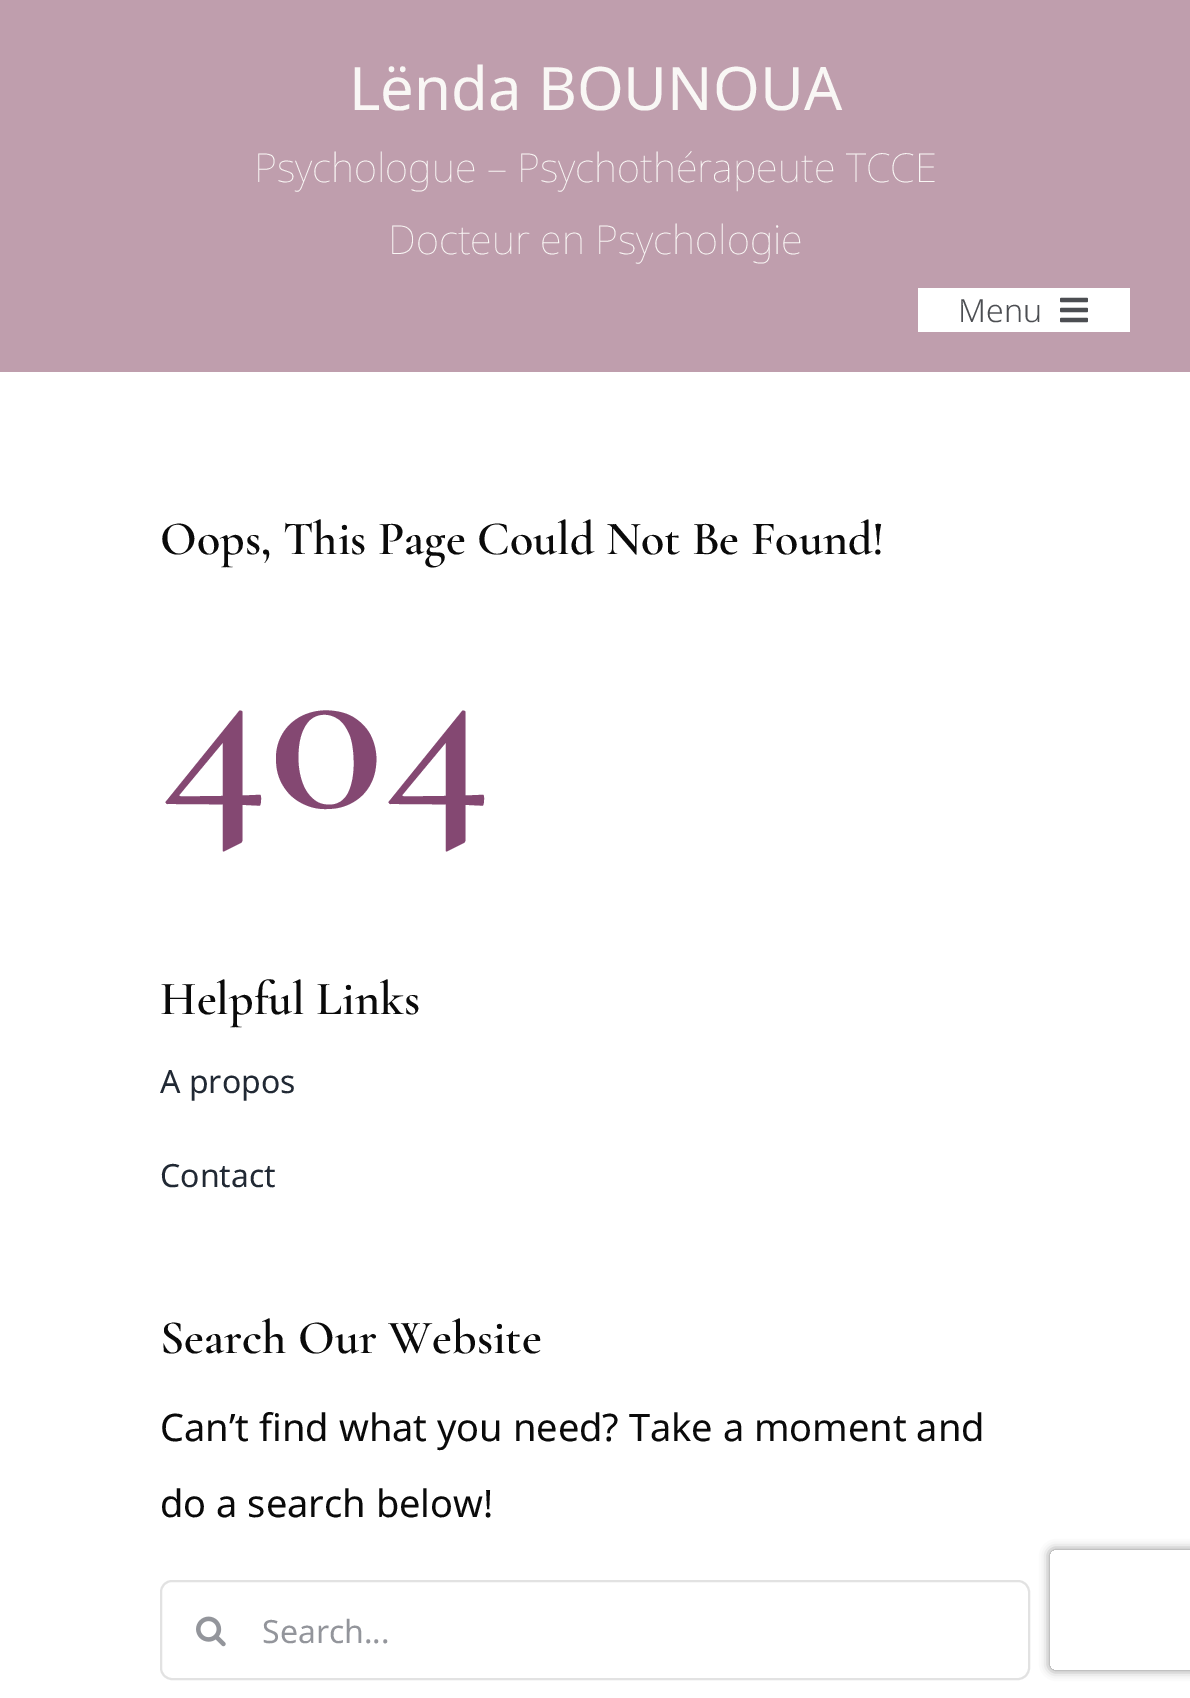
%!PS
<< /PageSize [1190 1698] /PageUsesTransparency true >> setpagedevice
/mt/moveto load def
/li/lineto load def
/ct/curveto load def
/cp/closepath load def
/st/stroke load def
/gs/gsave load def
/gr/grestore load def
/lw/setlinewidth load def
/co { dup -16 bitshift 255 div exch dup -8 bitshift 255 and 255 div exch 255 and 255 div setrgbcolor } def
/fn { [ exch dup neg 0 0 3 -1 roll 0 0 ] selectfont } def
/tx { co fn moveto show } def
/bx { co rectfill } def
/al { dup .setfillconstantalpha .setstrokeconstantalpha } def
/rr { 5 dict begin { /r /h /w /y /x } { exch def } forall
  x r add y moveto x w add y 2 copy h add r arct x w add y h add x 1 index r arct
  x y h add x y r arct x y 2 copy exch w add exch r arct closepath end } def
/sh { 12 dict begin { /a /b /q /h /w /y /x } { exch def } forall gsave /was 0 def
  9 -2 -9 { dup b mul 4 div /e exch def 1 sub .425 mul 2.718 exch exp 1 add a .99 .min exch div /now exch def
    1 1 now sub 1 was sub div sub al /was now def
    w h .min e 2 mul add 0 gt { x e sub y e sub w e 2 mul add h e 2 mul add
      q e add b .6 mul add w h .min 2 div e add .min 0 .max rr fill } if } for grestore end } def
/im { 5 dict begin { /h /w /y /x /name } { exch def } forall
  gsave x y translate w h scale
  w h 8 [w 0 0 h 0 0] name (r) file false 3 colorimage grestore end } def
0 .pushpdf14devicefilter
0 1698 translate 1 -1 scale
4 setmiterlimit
0 0 1190 1698 16#FFFFFF bx
0 0 1190 372 16#BF9EAD bx
918 288 212 44 16#FFFFFF bx
(media/1.raw) 1060 297 28 26 im
16#E2E2E2 co
2 lw
161 1581 868 98 11 rr st
(media/2.raw) 196 1616 30 31 im
gs
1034 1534 mt 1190 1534 li 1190 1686 li 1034 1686 li cp 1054 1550 mt 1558 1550 li 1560 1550 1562 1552 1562 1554 ct 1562 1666 li 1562 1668 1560 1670 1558 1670 ct 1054 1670 li 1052 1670 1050 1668 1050 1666 ct 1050 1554 li 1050 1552 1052 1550 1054 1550 ct cp eoclip newpath
16#808080 co
1050 1550 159 120 4 5 1 sh
gr
(Lënda BOUNOUA) 349 110 /NotoSans-Regular 60 16#F9F7F5 tx
(Psychologue – Psychothérapeute TCCE) 254 182 /NotoSans-Thin 40 16#F9F7F5 tx
(Docteur en Psychologie) 388 254 /NotoSans-Thin 40 16#F9F7F5 tx
(Menu) 958 322 /NotoSans-Light 32 16#4C4E52 tx
(Oops, This Page Could Not Be Found!) 160 554 /CormorantGaramond-SemiBold 48 16#0A0A0A tx
(404) 160 806 /CormorantGaramond-SemiBold 240 16#844872 tx
(Helpful Links) 160 1014 /CormorantGaramond-SemiBold 48 16#0A0A0A tx
(A propos) 160 1093 /NotoSans-Regular 32 16#212934 tx
(Contact) 160 1187 /NotoSans-Regular 32 16#212934 tx
(Search Our Website) 160 1353 /CormorantGaramond-SemiBold 48 16#0A0A0A tx
(Can’t find what you need? Take a moment and) 160 1441 /NotoSans-Regular 38 16#0A0A0A tx
(do a search below!) 160 1517 /NotoSans-Regular 38 16#0A0A0A tx
(Search...) 262 1643 /NotoSans-Regular 32 16#93959B tx
.poppdf14devicefilter showpage
